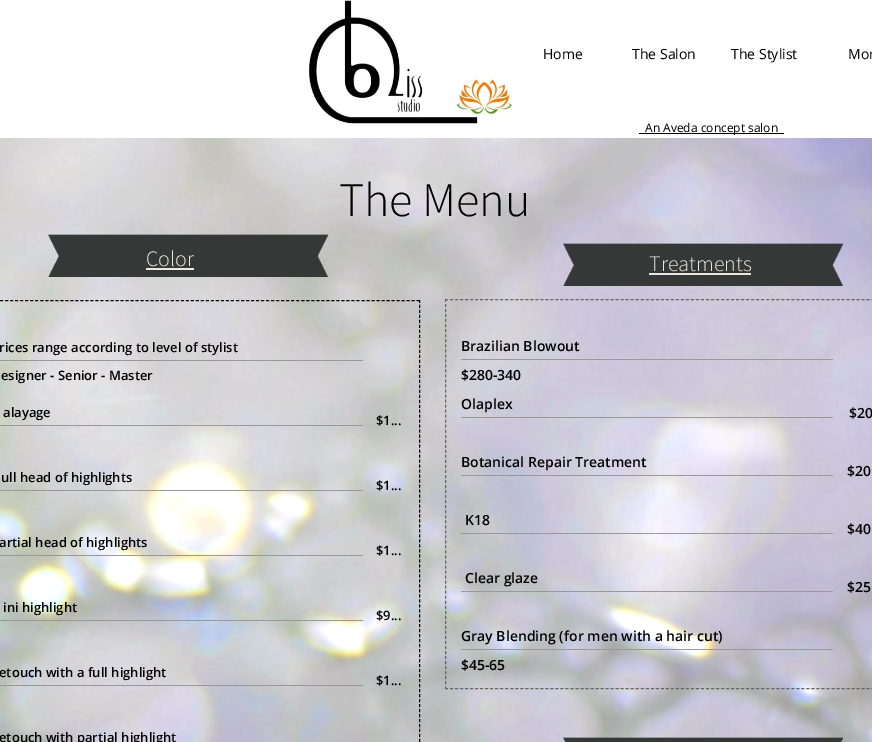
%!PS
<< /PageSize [872 742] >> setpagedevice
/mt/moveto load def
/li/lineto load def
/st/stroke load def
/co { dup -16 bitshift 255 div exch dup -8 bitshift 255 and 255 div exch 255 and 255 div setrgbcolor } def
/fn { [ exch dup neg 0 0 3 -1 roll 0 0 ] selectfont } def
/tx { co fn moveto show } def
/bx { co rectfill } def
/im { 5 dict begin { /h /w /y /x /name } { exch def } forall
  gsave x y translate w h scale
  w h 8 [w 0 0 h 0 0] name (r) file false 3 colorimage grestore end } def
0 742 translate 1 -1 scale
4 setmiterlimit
0 0 872 742 16#FFFFFF bx
(media/1.raw) 308 0 204 124 im
639 133 145 1 16#000000 bx
(media/2.raw) 0 138 872 604 im
(media/3.raw) 48 234 280 43 im
(media/4.raw) 563 243 280 43 im
146 268 48 2 16#EAE6E3 bx
649 273 102 2 16#EAE6E3 bx
16#000000 co
[3 2.02] 0 setdash
-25 300.5 mt 420 300.5 li st
[3 1.99] 0 setdash
419.5 300 mt 419.5 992 li st
0 360 363 1 16#999999 bx
0 425 363 1 16#999999 bx
0 490 363 1 16#999999 bx
0 555 363 1 16#999999 bx
0 620 363 1 16#999999 bx
0 685 363 1 16#999999 bx
16#666666 co
[3 2.02] 0 setdash
445 299.5 mt 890 299.5 li st
445 688.5 mt 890 688.5 li st
[3 2.03] 0 setdash
445.5 299 mt 445.5 689 li st
461 359 372 1 16#999999 bx
461 417 372 1 16#999999 bx
461 475 372 1 16#999999 bx
461 533 372 1 16#999999 bx
461 591 372 1 16#999999 bx
461 649 372 1 16#999999 bx
(media/5.raw) 563 737 280 5 im
(Home) 543 59 /OpenSans-Regular 14 16#000000 tx
(The Salon) 632 59 /OpenSans-Regular 14 16#000000 tx
(The Stylist) 731 59 /OpenSans-Regular 14 16#000000 tx
(Mor) 848 59 /OpenSans-Regular 14 16#000000 tx
(An Aveda concept salon) 645 132 /OpenSans-Regular 12 16#000000 tx
(The Menu) 339 216 /SourceSansPro-Light 48 16#000000 tx
(Color) 146 266 /SourceSansPro-Light 22 16#EAE6E3 tx
(Treatments) 649 271 /SourceSansPro-Light 22 16#EAE6E3 tx
(rices range according to level of stylist) -1 352 /OpenSans-SemiBold 13 16#000000 tx
(esigner - Senior - Master) 1 380 /OpenSans-SemiBold 13 16#000000 tx
(alayage) 3 417 /OpenSans-SemiBold 13 16#000000 tx
($1...) 376 425 /OpenSans-SemiBold 13 16#000000 tx
(ull head of highlights) 1 482 /OpenSans-SemiBold 13 16#000000 tx
($1...) 376 490 /OpenSans-SemiBold 13 16#000000 tx
(artial head of highlights) -1 547 /OpenSans-SemiBold 13 16#000000 tx
($1...) 376 555 /OpenSans-SemiBold 13 16#000000 tx
(ini highlight) 3 612 /OpenSans-SemiBold 13 16#000000 tx
($9...) 376 620 /OpenSans-SemiBold 13 16#000000 tx
(etouch with a full highlight) -1 677 /OpenSans-SemiBold 13 16#000000 tx
($1...) 376 685 /OpenSans-SemiBold 13 16#000000 tx
(etouch with partial highlight) -1 742 /OpenSans-SemiBold 13 16#000000 tx
(Brazilian Blowout) 461 351 /OpenSans-SemiBold 14 16#000000 tx
($280-340) 461 380 /OpenSans-SemiBold 14 16#000000 tx
(Olaplex) 461 409 /OpenSans-SemiBold 14 16#000000 tx
($20) 849 418 /OpenSans-SemiBold 14 16#000000 tx
(Botanical Repair Treatment) 461 467 /OpenSans-SemiBold 14 16#000000 tx
($20) 847 476 /OpenSans-SemiBold 14 16#000000 tx
(K18) 465 525 /OpenSans-SemiBold 14 16#000000 tx
($40) 847 534 /OpenSans-SemiBold 14 16#000000 tx
(Clear glaze) 465 583 /OpenSans-SemiBold 14 16#000000 tx
($25) 847 592 /OpenSans-SemiBold 14 16#000000 tx
(Gray Blending \(for men with a hair cut\)) 461 641 /OpenSans-SemiBold 14 16#000000 tx
($45-65) 461 670 /OpenSans-SemiBold 14 16#000000 tx
showpage
